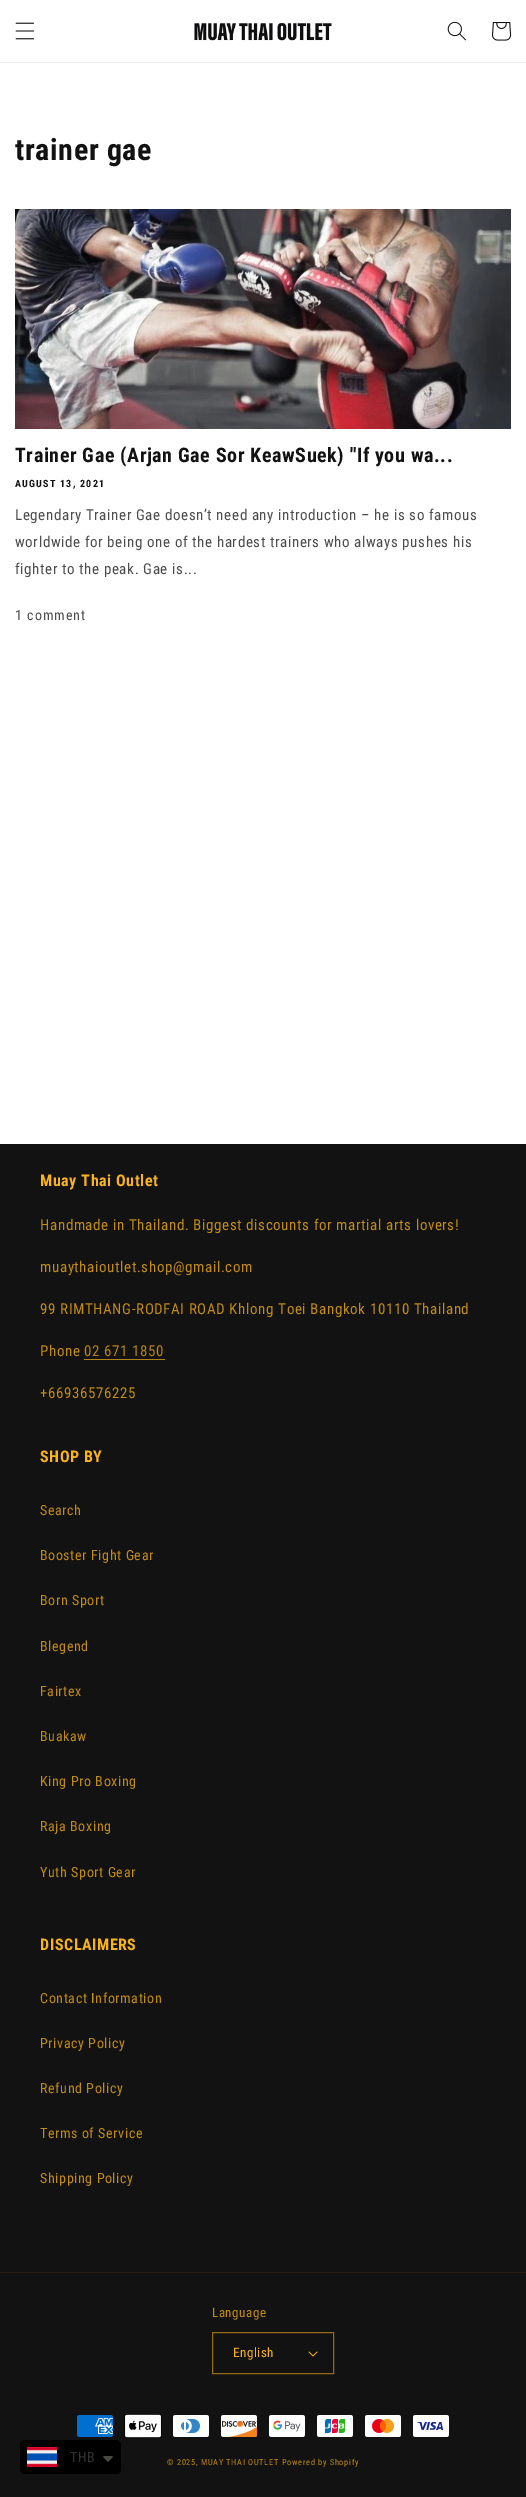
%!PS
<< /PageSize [526 2497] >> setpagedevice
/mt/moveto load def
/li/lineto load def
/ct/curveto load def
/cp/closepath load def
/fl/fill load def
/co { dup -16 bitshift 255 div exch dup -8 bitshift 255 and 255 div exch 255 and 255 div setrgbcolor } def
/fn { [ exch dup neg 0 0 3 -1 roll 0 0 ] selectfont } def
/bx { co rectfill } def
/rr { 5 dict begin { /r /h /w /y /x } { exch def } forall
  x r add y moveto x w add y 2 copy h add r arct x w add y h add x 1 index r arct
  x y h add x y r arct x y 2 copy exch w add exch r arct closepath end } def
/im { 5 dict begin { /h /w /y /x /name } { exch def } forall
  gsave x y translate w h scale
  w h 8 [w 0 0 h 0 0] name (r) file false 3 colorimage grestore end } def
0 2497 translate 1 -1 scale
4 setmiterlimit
0 0 526 2497 16#FFFFFF bx
0 62 526 1 16#ECECEC bx
(media/1.raw) 15 22 20 18 im
(media/2.raw) 194 23 138 18 im
(media/3.raw) 447 21 19 20 im
(media/4.raw) 492 22 20 19 im
(media/5.raw) 15 209 496 220 im
0 1144 526 1353 16#121212 bx
84 1359 81 1 16#B48317 bx
0 2272 526 1 16#251F13 bx
(media/6.raw) 308 2351 10 6 im
16#926B16 co
212.5 2332.5 121 41 rectstroke
(media/7.raw) 77 2415 36 22 im
(media/8.raw) 124 2414 38 24 im
(media/9.raw) 173 2415 36 22 im
(media/10.raw) 221 2415 36 22 im
(media/11.raw) 269 2415 36 22 im
(media/12.raw) 317 2415 36 22 im
(media/13.raw) 365 2415 36 22 im
(media/14.raw) 413 2415 36 22 im
16#000000 co
20 2440 101 34 5 rr fl
(media/15.raw) 27 2447 30 20 im
16#474942 co
105 2456 mt 104 2456 103.5 2456.5 103 2457 ct 108 2462 li 113 2457 li 112 2456 li cp fl
/RobotoCondensed-Bold 30 fn
16#121212 co
15 160 mt .6 0 (trainer gae) ashow
/RobotoCondensed-Bold 20 fn
15 462 mt .6 0 (Trainer Gae \(Arjan Gae Sor KeawSuek\) "If you wa...) ashow
/RobotoCondensed-Bold 10 fn
15 487 mt 1.25 0 (AUGUST 13, 2021) ashow
/RobotoCondensed-Regular 15 fn
16#4D4D4D co
15 520 mt .6 0 (Legendary Trainer Gae doesn’t need any introduction – he is so famous) ashow
15 547 mt .6 0 (worldwide for being one of the hardest trainers who always pushes his) ashow
15 574 mt .6 0 (fighter to the peak. Gae is...) ashow
/RobotoCondensed-Regular 14 fn
15 620 mt 1 0 (1 comment) ashow
/RobotoCondensed-Bold 16 fn
16#FAB319 co
40 1186 mt .6 0 (Muay Thai Outlet) ashow
/RobotoCondensed-Regular 15 fn
16#C08B17 co
40 1230 mt .6 0 (Handmade in Thailand. Biggest discounts for martial arts lovers!) ashow
40 1272 mt .6 0 (muaythaioutlet.shop@gmail.com) ashow
40 1314 mt .6 0 (99 RIMTHANG-RODFAI ROAD Khlong Toei Bangkok 10110 Thailand) ashow
40 1356 mt .6 0 (Phone) ashow
16#B48317 co
84 1356 mt .6 0 (02 671 1850) ashow
16#C08B17 co
40 1398 mt .6 0 (+66936576225) ashow
/RobotoCondensed-Bold 16 fn
16#FAB319 co
40 1462 mt .6 0 (SHOP BY) ashow
/RobotoCondensed-Regular 14 fn
16#C08B17 co
40 1515 mt .6 0 (Search) ashow
40 1560 mt .6 0 (Booster Fight Gear) ashow
40 1605 mt .6 0 (Born Sport) ashow
40 1651 mt .6 0 (Blegend) ashow
40 1696 mt .6 0 (Fairtex) ashow
40 1741 mt .6 0 (Buakaw) ashow
40 1786 mt .6 0 (King Pro Boxing) ashow
40 1831 mt .6 0 (Raja Boxing) ashow
40 1877 mt .6 0 (Yuth Sport Gear) ashow
/RobotoCondensed-Bold 16 fn
16#FAB319 co
40 1950 mt .6 0 (DISCLAIMERS) ashow
/RobotoCondensed-Regular 14 fn
16#C08B17 co
40 2003 mt .6 0 (Contact Information) ashow
40 2048 mt .6 0 (Privacy Policy) ashow
40 2093 mt .6 0 (Refund Policy) ashow
40 2138 mt .6 0 (Terms of Service) ashow
40 2183 mt .6 0 (Shipping Policy) ashow
/RobotoCondensed-Regular 13 fn
212 2317 mt .5 0 (Language) ashow
16#FAB319 co
233 2357 mt .5 0 (English) ashow
/RobotoCondensed-Regular 8.3 fn
16#C08B17 co
167 2465 mt .7 0 (© 2025, MUAY THAI OUTLET) ashow
282 2465 mt .7 0 (Powered by Shopify) ashow
/RobotoCondensed-Regular 14 fn
16#333333 co
70 2462 mt .6 0 (THB) ashow
showpage
